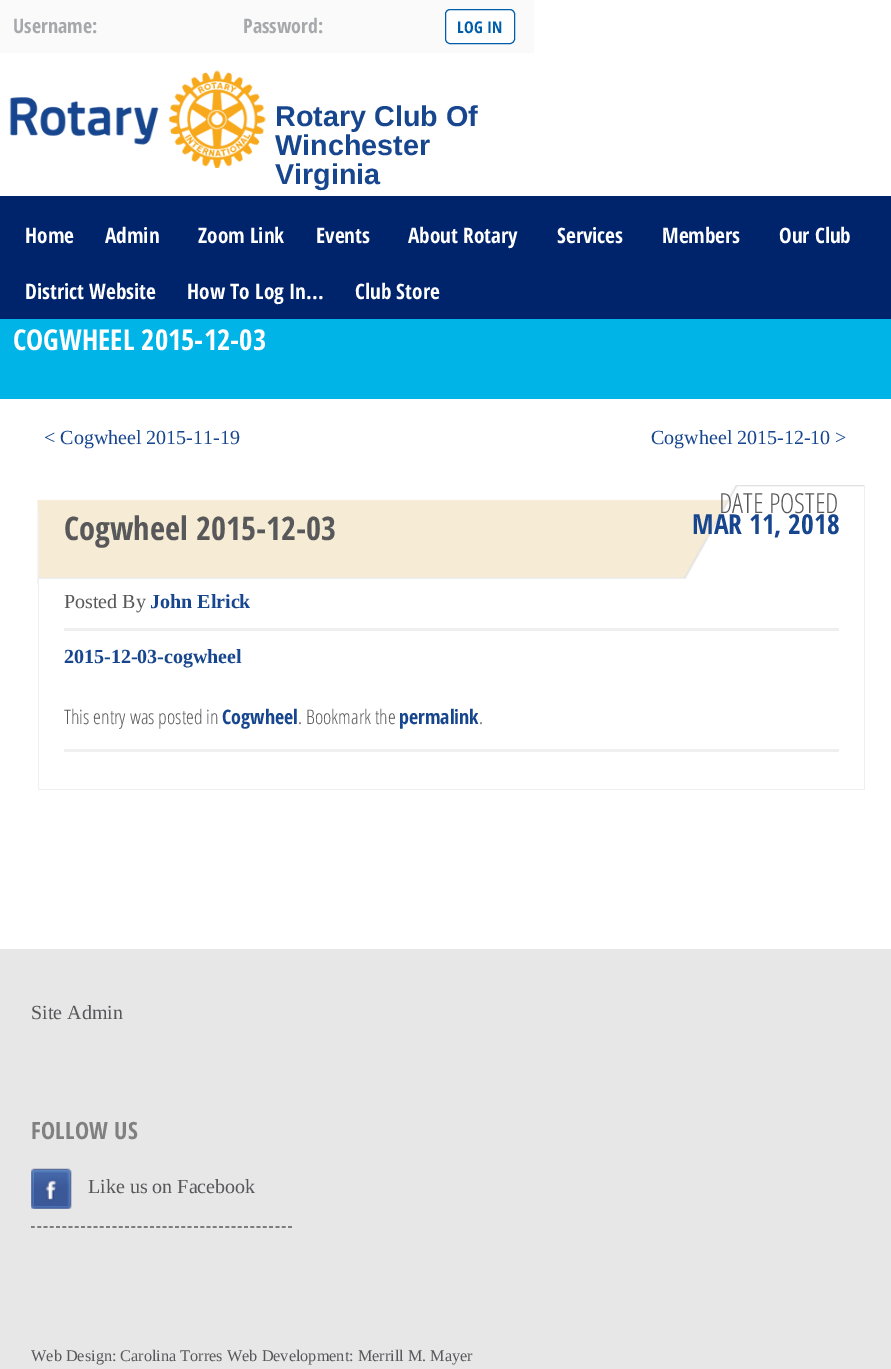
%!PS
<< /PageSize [891 1369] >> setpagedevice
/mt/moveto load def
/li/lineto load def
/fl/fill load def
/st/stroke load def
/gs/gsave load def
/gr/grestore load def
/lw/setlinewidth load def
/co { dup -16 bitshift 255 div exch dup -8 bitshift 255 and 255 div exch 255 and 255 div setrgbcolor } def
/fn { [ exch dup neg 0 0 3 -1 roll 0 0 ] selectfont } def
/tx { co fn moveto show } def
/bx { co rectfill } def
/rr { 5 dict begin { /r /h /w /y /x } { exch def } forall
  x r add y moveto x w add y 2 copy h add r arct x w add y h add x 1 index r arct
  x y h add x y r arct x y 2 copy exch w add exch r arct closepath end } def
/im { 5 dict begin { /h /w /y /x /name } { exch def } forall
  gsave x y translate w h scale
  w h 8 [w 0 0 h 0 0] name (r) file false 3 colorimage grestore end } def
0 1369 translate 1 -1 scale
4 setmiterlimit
0 0 891 1369 16#FFFFFF bx
0 0 534 53 16#FAFAFA bx
16#FFFFFF co
445.5 9.5 69 34 4.5 rr gs fl gr
16#005DAA co
st
(media/1.raw) 9 70 257 98 im
0 196 891 123 16#00246C bx
0 319 891 80 16#01B4E7 bx
(media/2.raw) 37 485 827 100 im
864 485 1 305 16#EFEFEF bx
38 789 827 1 16#EFEFEF bx
38 510 1 279 16#EFEFEF bx
64 628 775 3 16#EFEFEF bx
64 749 775 3 16#EFEFEF bx
0 949 891 420 16#E7E7E8 bx
(media/3.raw) 31 1168 41 41 im
16#58585A co
1.2 lw
[3.75 2.52] 0 setdash
31 1227 mt 292.5 1227 li st
(Username:) 13 33 /OpenSansCondensed-Bold 20 16#A6A8AB tx
(Password:) 243 33 /OpenSansCondensed-Bold 20 16#A6A8AB tx
/OpenSansCondensed-Bold 16.25 fn
16#005DAA co
457 33 mt .25 0 (LOG IN) ashow
(Rotary Club Of) 275 126 /LiberationSans-Bold 28.75 16#17468F tx
(Winchester) 275 155 /LiberationSans-Bold 28.75 16#17468F tx
(Virginia) 275 184 /LiberationSans-Bold 28.75 16#17468F tx
(Home) 25 243 /OpenSansCondensed-Bold 21.25 16#FFFFFF tx
(Admin) 105 243 /OpenSansCondensed-Bold 21.25 16#FFFFFF tx
(Zoom Link) 198 243 /OpenSansCondensed-Bold 21.25 16#FFFFFF tx
(Events) 316 243 /OpenSansCondensed-Bold 21.25 16#FFFFFF tx
(About Rotary) 408 243 /OpenSansCondensed-Bold 21.25 16#FFFFFF tx
(Services) 557 243 /OpenSansCondensed-Bold 21.25 16#FFFFFF tx
(Members) 662 243 /OpenSansCondensed-Bold 21.25 16#FFFFFF tx
(Our Club) 779 243 /OpenSansCondensed-Bold 21.25 16#FFFFFF tx
(District Website) 25 299 /OpenSansCondensed-Bold 21.25 16#FFFFFF tx
(How To Log In...) 187 299 /OpenSansCondensed-Bold 21.25 16#FFFFFF tx
(Club Store) 355 299 /OpenSansCondensed-Bold 21.25 16#FFFFFF tx
(COGWHEEL 2015-12-03) 13 350 /OpenSansCondensed-Bold 28.75 16#FFFFFF tx
(< Cogwheel 2015-11-19) 44 444 /LiberationSerif-Regular 20 16#17468F tx
(Cogwheel 2015-12-10 >) 651 444 /LiberationSerif-Regular 20 16#17468F tx
(Cogwheel 2015-12-03) 64 540 /OpenSansCondensed-Bold 32.5 16#58585A tx
(DATE POSTED) 719 513 /OpenSansCondensed-Light 27.5 16#58585A tx
(MAR 11, 2018) 692 534 /OpenSansCondensed-Bold 27.5 16#17468F tx
(Posted By) 64 608 /LiberationSerif-Regular 20 16#58585A tx
(John Elrick) 150 608 /LiberationSerif-Bold 20 16#17468F tx
(2015-12-03-cogwheel) 64 663 /LiberationSerif-Bold 20 16#17468F tx
(This entry was posted in) 64 724 /OpenSansCondensed-Light 20 16#58585A tx
(Cogwheel) 222 724 /OpenSansCondensed-Bold 20 16#17468F tx
(. Bookmark the) 298 724 /OpenSansCondensed-Light 20 16#58585A tx
(permalink) 399 724 /OpenSansCondensed-Bold 20 16#17468F tx
(.) 479 724 /OpenSansCondensed-Light 20 16#58585A tx
(Site Admin) 31 1019 /LiberationSerif-Regular 20 16#58585A tx
/OpenSansCondensed-Bold 23.75 fn
16#808080 co
31 1139 mt .25 0 (FOLLOW US) ashow
(Like us on Facebook) 88 1193 /LiberationSerif-Regular 20 16#58585A tx
(Web Design: Carolina Torres Web Development: Merrill M. Mayer) 31 1361 /LiberationSerif-Regular 16.25 16#58585A tx
showpage
